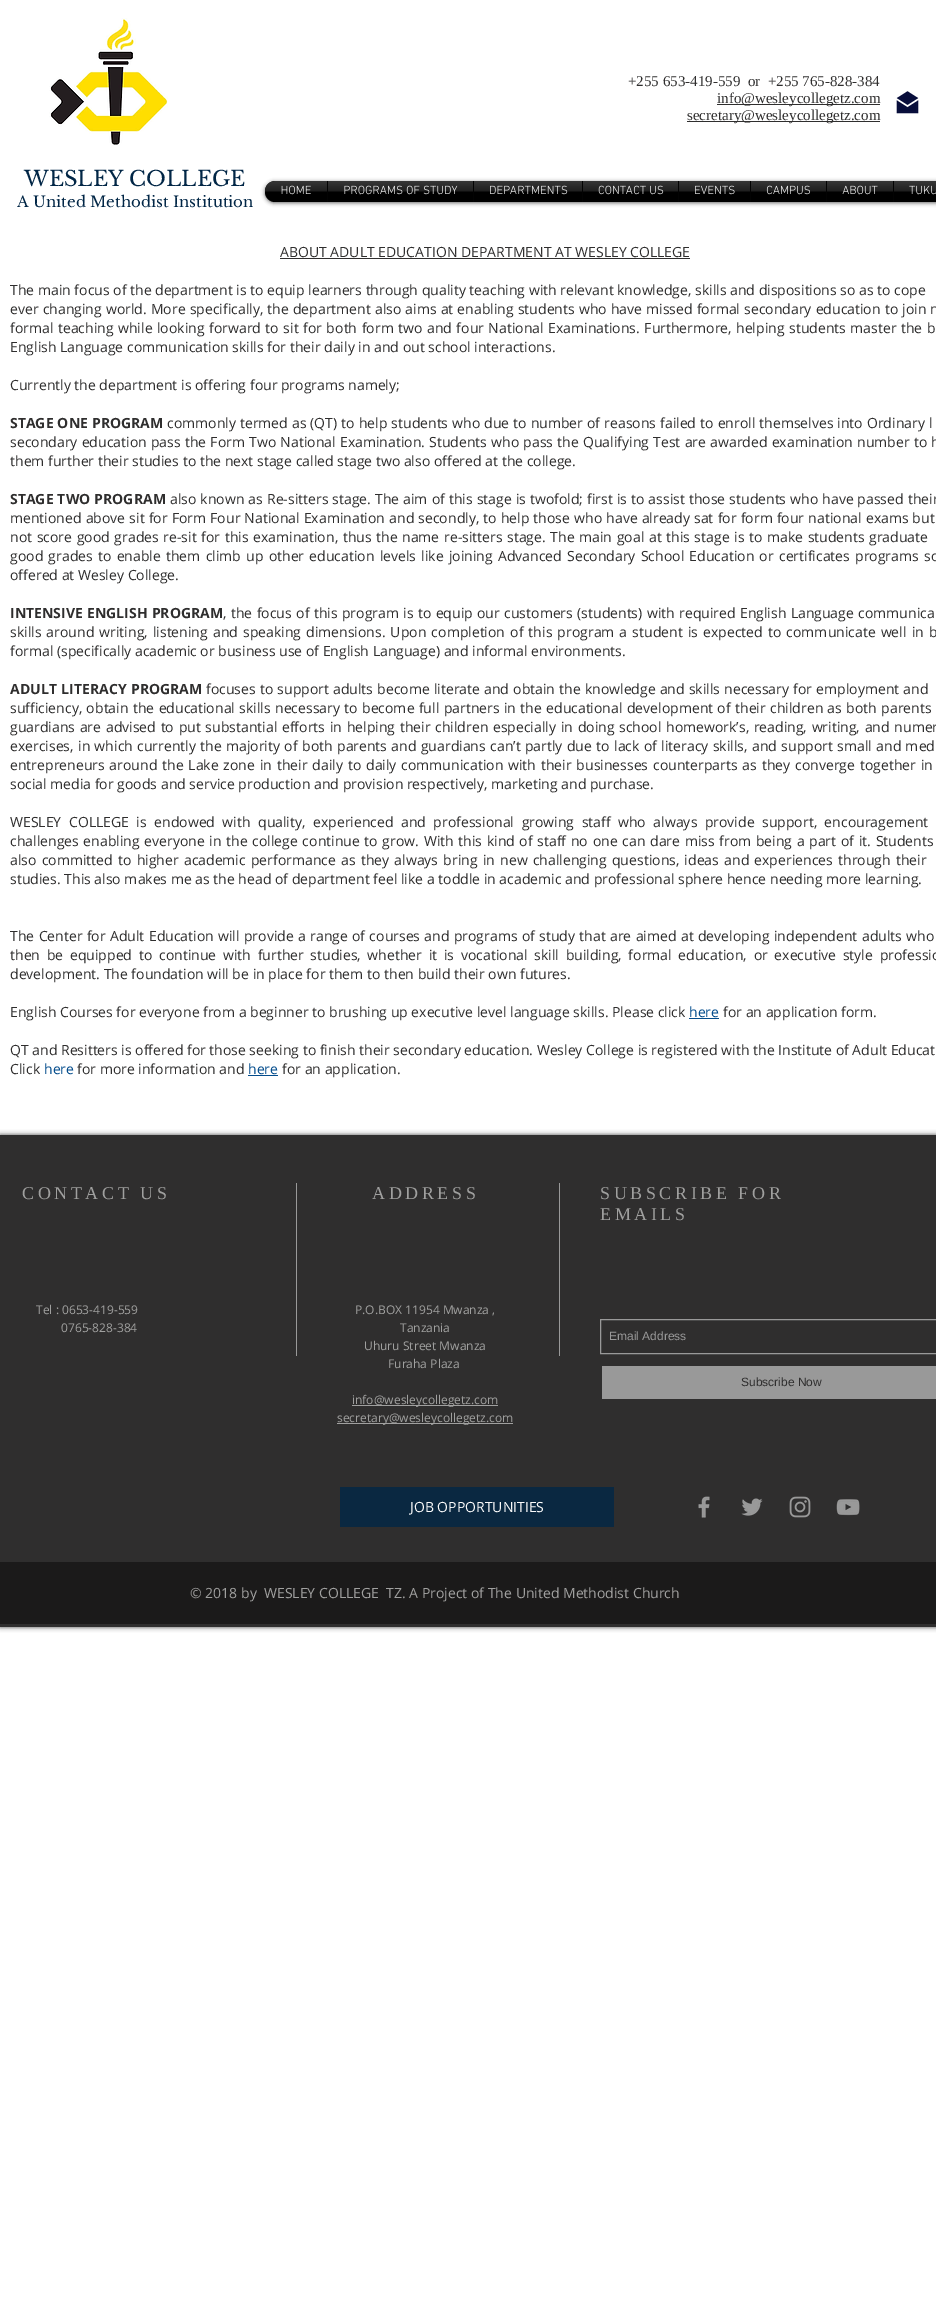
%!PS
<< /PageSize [936 2319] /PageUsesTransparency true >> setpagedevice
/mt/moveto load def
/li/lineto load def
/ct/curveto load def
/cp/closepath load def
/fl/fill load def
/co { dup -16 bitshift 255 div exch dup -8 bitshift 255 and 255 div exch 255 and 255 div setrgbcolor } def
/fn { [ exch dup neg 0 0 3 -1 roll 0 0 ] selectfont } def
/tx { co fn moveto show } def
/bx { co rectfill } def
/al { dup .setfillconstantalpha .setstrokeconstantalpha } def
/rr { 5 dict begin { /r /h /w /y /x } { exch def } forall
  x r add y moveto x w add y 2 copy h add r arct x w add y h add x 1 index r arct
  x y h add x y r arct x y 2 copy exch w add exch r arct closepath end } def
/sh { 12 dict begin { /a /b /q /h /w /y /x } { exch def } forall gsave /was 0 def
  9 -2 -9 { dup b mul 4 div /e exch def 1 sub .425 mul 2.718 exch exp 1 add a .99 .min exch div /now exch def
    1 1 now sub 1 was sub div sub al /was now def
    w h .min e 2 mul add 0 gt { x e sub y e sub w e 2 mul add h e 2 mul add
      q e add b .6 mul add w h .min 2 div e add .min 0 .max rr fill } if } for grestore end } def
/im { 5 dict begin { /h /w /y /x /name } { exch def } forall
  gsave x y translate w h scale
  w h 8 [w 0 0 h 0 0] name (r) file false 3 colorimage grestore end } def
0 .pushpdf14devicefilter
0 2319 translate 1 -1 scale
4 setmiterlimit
0 0 936 2319 16#FFFFFF bx
(media/1.raw) 49 18 119 127 im
717 104 163 1 16#2F2E2E bx
687 121 193 1 16#2F2E2E bx
(media/2.raw) 896 91 23 23 im
16#000000 co
265 182 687 21 10 2 .6 sh
(media/3.raw) 265 181 10 10 im
275 181 mt 327 181 li 327 202 li 275 202 li 269.5 202 265 197.5 265 192 ct 265 191 li 265 185.5 269.5 181 275 181 ct cp fl
328 181 145 21 16#000000 bx
327 181 1 21 16#030303 bx
474 181 108 21 16#000000 bx
473 181 1 21 16#030303 bx
583 181 95 21 16#000000 bx
582 181 1 21 16#030303 bx
679 181 71 21 16#000000 bx
678 181 1 21 16#030303 bx
751 181 75 21 16#000000 bx
750 181 1 21 16#030303 bx
827 181 66 21 16#000000 bx
826 181 1 21 16#030303 bx
894 181 42 21 16#000000 bx
893 181 1 21 16#030303 bx
280 258 410 1 16#2F2E2E bx
689 1018 30 1 16#034C8C bx
248 1075 30 1 16#034C8C bx
16#000000 co
0 1135 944 492 0 2.5 .7 sh
0 1135 936 492 16#2F2E2E bx
296 1183 1 173 16#999999 bx
559 1183 1 173 16#999999 bx
352 1405 146 1 16#A0A09F bx
337 1423 176 1 16#A0A09F bx
16#999999 co
600.5 1319.5 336 34 rectstroke
602 1366 334 33 16#999999 bx
340 1487 274 40 16#0A2841 bx
(media/12.raw) 698 1496 12 22 im
(media/13.raw) 741 1498 22 18 im
(media/14.raw) 789 1496 22 22 im
(media/15.raw) 836 1499 24 17 im
0 1562 936 62 16#1B1A1A bx
(+255 653-419-559  or  +255 765-828-384) 628 86 /LiberationSerif-Regular 15 16#2F2E2E tx
(info@wesleycollegetz.com) 717 103 /LiberationSerif-Regular 15 16#2F2E2E tx
(secretary@wesleycollegetz.com) 687 120 /LiberationSerif-Regular 15 16#2F2E2E tx
(WESLEY COLLEGE) 24 186 /LibreBaskerville-Regular 21 16#012646 tx
(A United Methodist Institution) 17 207 /LibreBaskerville-Regular 15 16#012646 tx
(HOME) 281 194 /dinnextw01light-Light 12 16#FAFAFA tx
(media/4.raw) 265 181 62 13 im
(PROGRAMS OF STUDY) 343 194 /dinnextw01light-Light 12 16#FAFAFA tx
(media/5.raw) 328 181 145 13 im
(DEPARTMENTS) 489 194 /dinnextw01light-Light 12 16#FAFAFA tx
(media/6.raw) 474 181 108 13 im
(CONTACT US) 598 194 /dinnextw01light-Light 12 16#FAFAFA tx
(media/7.raw) 583 181 95 13 im
(EVENTS) 694 194 /dinnextw01light-Light 12 16#FAFAFA tx
(media/8.raw) 679 181 71 13 im
(CAMPUS) 766 194 /dinnextw01light-Light 12 16#FAFAFA tx
(media/9.raw) 751 181 75 13 im
(ABOUT) 842 194 /dinnextw01light-Light 12 16#FAFAFA tx
(media/10.raw) 827 181 66 13 im
(TUKU) 909 194 /dinnextw01light-Light 12 16#FAFAFA tx
(media/11.raw) 894 181 42 13 im
(ABOUT ADULT EDUCATION DEPARTMENT AT WESLEY COLLEGE) 280 257 /OpenSans-Regular 14 16#2F2E2E tx
(The main focus of the department is to equip learners through quality teaching with relevant knowledge, skills and dispositions so as to cope) 10 295 /OpenSans-Regular 14 16#2F2E2E tx
10 314 mt .5 0 32 (ever changing world. More specifically, the department also aims at enabling students who have missed formal secondary education to join n) widthshow
10 333 mt .9 0 32 (formal teaching while looking forward to sit for both form two and four National Examinations. Furthermore, helping students master the b) widthshow
(English Language communication skills for their daily in and out school interactions.) 10 352 /OpenSans-Regular 14 16#2F2E2E tx
(Currently the department is offering four programs namely;) 10 390 /OpenSans-Regular 14 16#2F2E2E tx
/OpenSans-Bold 14 fn
10 428 mt .4 0 32 (STAGE ONE PROGRAM) widthshow
/OpenSans-Regular 14 fn
167 428 mt .4 0 32 (commonly termed as \(QT\) to help students who due to number of reasons failed to enroll themselves into Ordinary l) widthshow
10 447 mt .6 0 32 (secondary education pass the Form Two National Examination. Students who pass the Qualifying Test are awarded examination number to h) widthshow
(them further their studies to the next stage called stage two also offered at the college.) 10 466 /OpenSans-Regular 14 16#2F2E2E tx
/OpenSans-Bold 14 fn
10 504 mt .4 0 32 (STAGE TWO PROGRAM) widthshow
/OpenSans-Regular 14 fn
170 504 mt .4 0 32 (also known as Re-sitters stage. The aim of this stage is twofold; first is to assist those students who have passed their) widthshow
10 523 mt .5 0 32 (mentioned above sit for Form Four National Examination and secondly, to help those who have already sat for form four national exams but) widthshow
10 542 mt 1 0 32 (not score good grades re-sit for this examination, thus the name re-sitters stage. The main goal at this stage is to make students graduate) widthshow
10 561 mt 1.6 0 32 (good grades to enable them climb up other education levels like joining Advanced Secondary School Education or certificates programs so) widthshow
(offered at Wesley College.) 10 580 /OpenSans-Regular 14 16#2F2E2E tx
/OpenSans-Bold 14 fn
10 618 mt .75 0 32 (INTENSIVE ENGLISH PROGRAM) widthshow
/OpenSans-Regular 14 fn
223 618 mt .75 0 32 (, the focus of this program is to equip our customers \(students\) with required English Language communica) widthshow
10 637 mt 1.5 0 32 (skills around writing, listening and speaking dimensions. Upon completion of this program a student is expected to communicate well in b) widthshow
(formal \(specifically academic or business use of English Language\) and informal environments.) 10 656 /OpenSans-Regular 14 16#2F2E2E tx
/OpenSans-Bold 14 fn
10 694 mt 1 0 32 (ADULT LITERACY PROGRAM) widthshow
/OpenSans-Regular 14 fn
206 694 mt .5 0 32 (focuses to support adults become literate and obtain the knowledge and skills necessary for employment and) widthshow
10 713 mt .75 0 32 (sufficiency, obtain the educational skills necessary to become full partners in the educational development of their children as both parents) widthshow
10 732 mt 1.1 0 32 (guardians are advised to put substantial efforts in helping their children especially in doing school homework’s, reading, writing, and numer) widthshow
10 751 mt .75 0 32 (exercises, in which currently the majority of both parents and guardians can’t partly due to lack of literacy skills, and support small and med) widthshow
10 770 mt 1.25 0 32 (entrepreneurs around the Lake zone in their daily to daily communication with their businesses counterparts as they converge together in) widthshow
(social media for goods and service production and provision respectively, marketing and purchase.) 10 789 /OpenSans-Regular 14 16#2F2E2E tx
10 827 mt 3.9 0 32 (WESLEY COLLEGE is endowed with quality, experienced and professional growing staff who always provide support, encouragement) widthshow
10 846 mt 1.05 0 32 (challenges enabling everyone in the college continue to grow. With this kind of staff no one can dare miss from being a part of it. Students) widthshow
10 865 mt 1.6 0 32 (also committed to higher academic performance as they always bring in new challenging questions, ideas and experiences through their) widthshow
(studies. This also makes me as the head of department feel like a toddle in academic and professional sphere hence needing more learning.) 10 884 /OpenSans-Regular 14 16#2F2E2E tx
10 941 mt .7 0 32 (The Center for Adult Education will provide a range of courses and programs of study that are aimed at developing independent adults who) widthshow
10 960 mt 3.1 0 32 (then be equipped to continue with further studies, whether it is vocational skill building, formal education, or executive style professio) widthshow
(development. The foundation will be in place for them to then build their own futures.) 10 979 /OpenSans-Regular 14 16#2F2E2E tx
(English Courses for everyone from a beginner to brushing up executive level language skills. Please click) 10 1017 /OpenSans-Regular 14 16#2F2E2E tx
(here) 689 1017 /OpenSans-Regular 14 16#034C8C tx
(for an application form.) 723 1017 /OpenSans-Regular 14 16#2F2E2E tx
(QT and Resitters is offered for those seeking to finish their secondary education. Wesley College is registered with the Institute of Adult Educat) 10 1055 /OpenSans-Regular 14 16#2F2E2E tx
(Click) 10 1074 /OpenSans-Regular 14 16#2F2E2E tx
(here) 44 1074 /OpenSans-Regular 14 16#034C8C tx
(for more information and) 77 1074 /OpenSans-Regular 14 16#2F2E2E tx
(here) 248 1074 /OpenSans-Regular 14 16#034C8C tx
(for an application.) 282 1074 /OpenSans-Regular 14 16#2F2E2E tx
/LiberationSerif-Regular 18 fn
16#A0A09F co
22 1199 mt 3.6 0 (CONTACT US) ashow
372 1199 mt 3.6 0 (ADDRESS) ashow
600 1199 mt 3.6 0 (SUBSCRIBE FOR) ashow
600 1220 mt 3.6 0 (EMAILS) ashow
(Tel : 0653-419-559) 36 1314 /OpenSans-Regular 12 16#A0A09F tx
(0765-828-384) 61 1332 /OpenSans-Regular 12 16#A0A09F tx
(P.O.BOX 11954 Mwanza ,) 355 1314 /OpenSans-Regular 12 16#A0A09F tx
(Tanzania) 400 1332 /OpenSans-Regular 12 16#A0A09F tx
(Uhuru Street Mwanza) 364 1350 /OpenSans-Regular 12 16#A0A09F tx
(Furaha Plaza) 388 1368 /OpenSans-Regular 12 16#A0A09F tx
(info@wesleycollegetz.com) 352 1404 /OpenSans-Regular 12 16#A0A09F tx
(secretary@wesleycollegetz.com) 337 1422 /OpenSans-Regular 12 16#A0A09F tx
(Email Address) 609 1340 /LiberationSans-Regular 12 16#999999 tx
(Subscribe Now) 741 1386 /LiberationSans-Regular 12 16#2F2E2E tx
(JOB OPPORTUNITIES) 410 1512 /OpenSans-Regular 14 16#FAFAFA tx
(© 2018 by  WESLEY COLLEGE  TZ. A Project of The United Methodist Church) 190 1598 /OpenSans-Regular 14 16#A0A09F tx
.poppdf14devicefilter showpage
